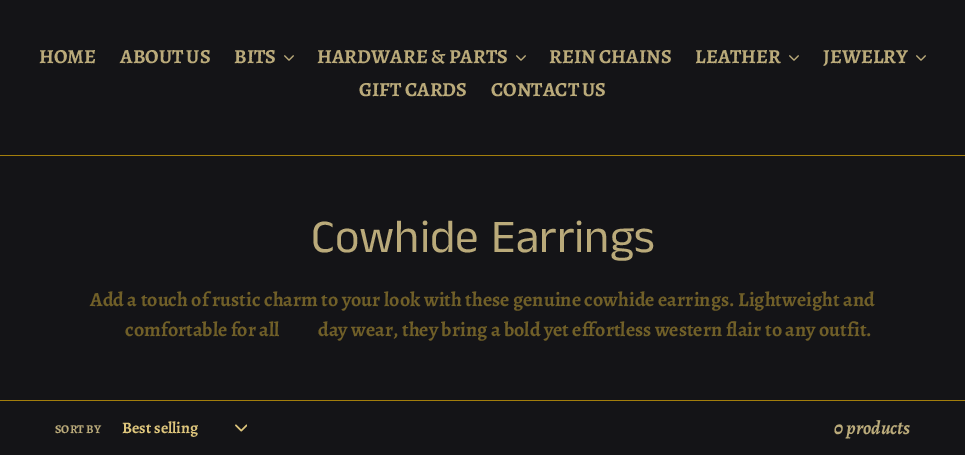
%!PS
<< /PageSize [965 455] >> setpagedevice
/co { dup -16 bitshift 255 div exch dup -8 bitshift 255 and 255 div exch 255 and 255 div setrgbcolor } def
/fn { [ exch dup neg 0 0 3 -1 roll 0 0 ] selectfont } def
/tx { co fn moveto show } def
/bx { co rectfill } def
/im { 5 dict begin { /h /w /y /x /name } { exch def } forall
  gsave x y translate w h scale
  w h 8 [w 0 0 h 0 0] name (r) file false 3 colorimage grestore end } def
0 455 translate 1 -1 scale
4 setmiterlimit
0 0 965 455 16#141417 bx
0 155 965 1 16#A37E0C bx
(media/1.raw) 284 55 10 6 im
(media/1.raw) 516 55 10 6 im
(media/1.raw) 789 55 10 6 im
(media/1.raw) 916 55 10 6 im
0 400 965 1 16#A37E0C bx
(media/2.raw) 235 424 12 8 im
(HOME) 39 63 /Alegreya-Bold 20 16#BAAA7A tx
(ABOUT US) 120 63 /Alegreya-Bold 20 16#BAAA7A tx
(BITS) 234 63 /Alegreya-Bold 20 16#BAAA7A tx
(HARDWARE & PARTS) 317 63 /Alegreya-Bold 20 16#BAAA7A tx
(REIN CHAINS) 549 63 /Alegreya-Bold 20 16#BAAA7A tx
(LEATHER) 695 63 /Alegreya-Bold 20 16#BAAA7A tx
(JEWELRY) 823 63 /Alegreya-Bold 20 16#BAAA7A tx
(GIFT CARDS) 359 96 /Alegreya-Bold 20 16#BAAA7A tx
(CONTACT US) 491 96 /Alegreya-Bold 20 16#BAAA7A tx
(Cowhide Earrings) 311 252 /AnekTamil-Regular 47 16#BAAA7A tx
(Add a touch of rustic charm to your look with these genuine cowhide earrings. Lightweight and) 90 306 /Alegreya-Bold 20 16#705F28 tx
(comfortable for all‑day wear, they bring a bold yet effortless western flair to any outfit.) 125 336 /Alegreya-Bold 20 16#705F28 tx
(SORT BY) 55 433 /Alegreya-Bold 12 16#BAAA7A tx
(Best selling) 122 433 /Alegreya-Bold 16 16#DDC57C tx
(0 products) 834 434 /Alegreya-BoldItalic 19 16#BAAA7A tx
showpage
